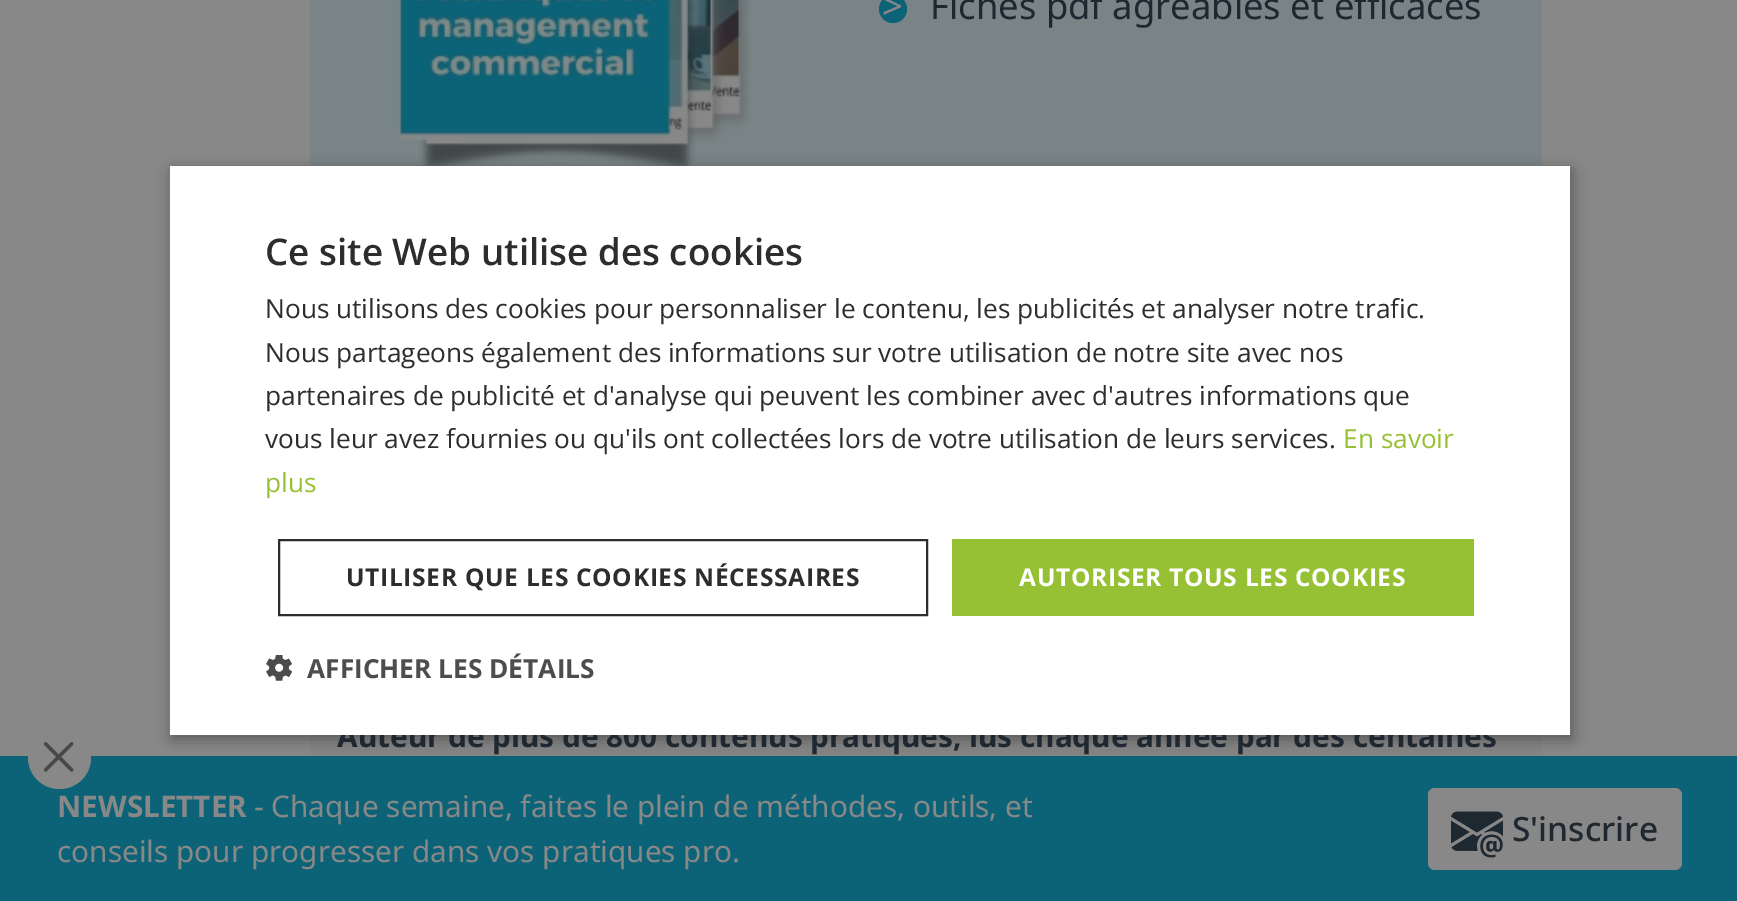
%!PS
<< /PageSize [1737 901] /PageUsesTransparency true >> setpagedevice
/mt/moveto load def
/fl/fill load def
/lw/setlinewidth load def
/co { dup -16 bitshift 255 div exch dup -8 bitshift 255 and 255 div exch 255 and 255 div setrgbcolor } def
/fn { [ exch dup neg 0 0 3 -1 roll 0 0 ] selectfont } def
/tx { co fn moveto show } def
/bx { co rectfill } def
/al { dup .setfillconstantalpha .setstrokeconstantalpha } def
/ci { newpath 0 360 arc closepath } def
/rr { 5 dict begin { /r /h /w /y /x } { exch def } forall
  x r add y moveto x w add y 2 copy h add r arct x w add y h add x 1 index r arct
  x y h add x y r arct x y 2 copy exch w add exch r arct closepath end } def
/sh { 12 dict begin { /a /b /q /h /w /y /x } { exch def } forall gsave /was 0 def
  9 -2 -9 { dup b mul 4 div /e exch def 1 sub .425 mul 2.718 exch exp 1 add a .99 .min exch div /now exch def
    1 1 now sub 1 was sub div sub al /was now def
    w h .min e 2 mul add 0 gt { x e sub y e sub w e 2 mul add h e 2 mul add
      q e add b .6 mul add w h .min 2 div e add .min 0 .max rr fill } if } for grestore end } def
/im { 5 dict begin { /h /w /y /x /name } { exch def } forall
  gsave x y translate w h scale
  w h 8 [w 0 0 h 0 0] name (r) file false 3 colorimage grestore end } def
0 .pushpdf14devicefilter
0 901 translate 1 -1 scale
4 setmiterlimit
0 0 1737 901 16#888888 bx
310 0 1232 166 16#798486 bx
(media/1.raw) 398 0 353 166 im
16#0C6377 co
893 9 14 ci fl
310 735 1232 21 16#858585 bx
0 756 1737 145 16#0C6377 bx
16#000000 co
172 170 1400 569 0 7 .35 sh
16#888888 co
59.5 757.5 31.5 ci fl
(media/3.raw) 44 742 30 30 im
1428 788 254 82 7 rr fl
(media/4.raw) 1451 811 52 47 im
(>) 882 19 /NotoSans-Regular 36.4 16#888888 tx
(Fiches pdf agréables et efficaces) 930 19 /NotoSans-Regular 36.4 16#1F2831 tx
(Auteur de plus de 800 contenus pratiques, lus chaque année par des centaines) 337 747 /NotoSans-Bold 29.75 16#1F2831 tx
170 166 1400 569 16#FFFFFF bx
(Ce site Web utilise des cookies) 265 265 /OpenSans-SemiBold 36.75 16#2D2D2D tx
(Nous utilisons des cookies pour personnaliser le contenu, les publicités et analyser notre trafic.) 265 318 /OpenSans-Regular 26.25 16#2D2D2D tx
(Nous partageons également des informations sur votre utilisation de notre site avec nos) 265 362 /OpenSans-Regular 26.25 16#2D2D2D tx
(partenaires de publicité et d'analyse qui peuvent les combiner avec d'autres informations que) 265 405 /OpenSans-Regular 26.25 16#2D2D2D tx
(vous leur avez fournies ou qu'ils ont collectées lors de votre utilisation de leurs services.) 265 448 /OpenSans-Regular 26.25 16#2D2D2D tx
(En savoir) 1343 448 /OpenSans-Regular 26.25 16#96C134 tx
(plus) 265 492 /OpenSans-Regular 26.25 16#96C134 tx
16#2D2D2D co
2 lw
279 540 648 75 rectstroke
/OpenSans-Bold 24.5 fn
346 586 mt .7 0 (UTILISER QUE LES COOKIES NÉCESSAIRES) ashow
952 539 522 77 16#96C134 bx
16#FFFFFF co
1019 586 mt .7 0 (AUTORISER TOUS LES COOKIES) ashow
(media/2.raw) 266 655 26 26 im
(AFFICHER LES DÉTAILS) 307 678 /OpenSans-Bold 26.25 16#4D4D4D tx
(NEWSLETTER) 57 817 /NotoSans-Bold 29.75 16#888888 tx
(- Chaque semaine, faites le plein de méthodes, outils, et) 254 817 /NotoSans-Regular 29.75 16#888888 tx
(conseils pour progresser dans vos pratiques pro.) 57 862 /NotoSans-Regular 29.75 16#888888 tx
(S'inscrire) 1512 841 /NotoSans-Medium 33.5 16#1F2831 tx
.poppdf14devicefilter showpage
